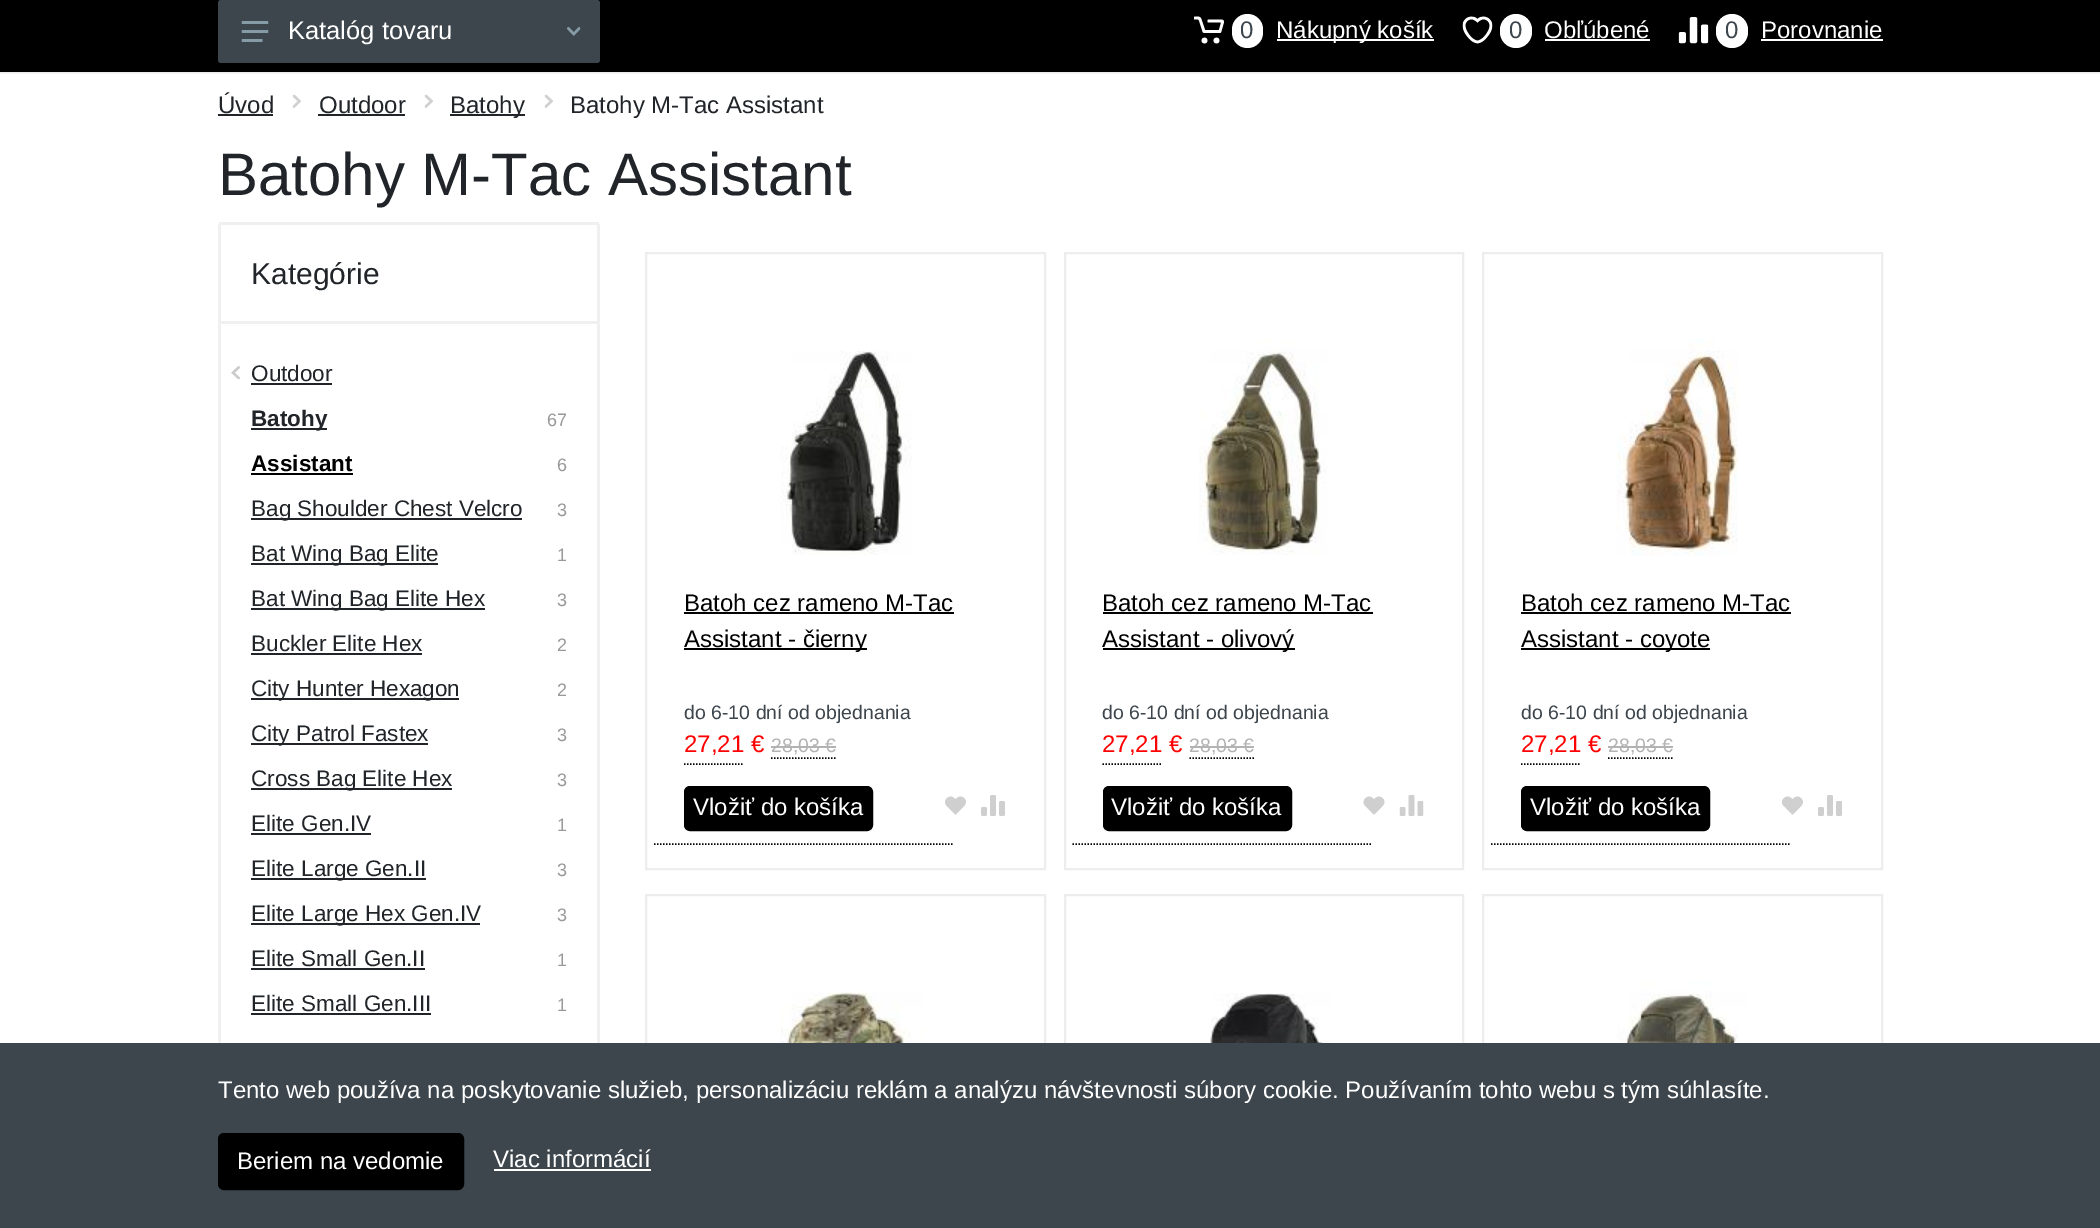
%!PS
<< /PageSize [2100 1228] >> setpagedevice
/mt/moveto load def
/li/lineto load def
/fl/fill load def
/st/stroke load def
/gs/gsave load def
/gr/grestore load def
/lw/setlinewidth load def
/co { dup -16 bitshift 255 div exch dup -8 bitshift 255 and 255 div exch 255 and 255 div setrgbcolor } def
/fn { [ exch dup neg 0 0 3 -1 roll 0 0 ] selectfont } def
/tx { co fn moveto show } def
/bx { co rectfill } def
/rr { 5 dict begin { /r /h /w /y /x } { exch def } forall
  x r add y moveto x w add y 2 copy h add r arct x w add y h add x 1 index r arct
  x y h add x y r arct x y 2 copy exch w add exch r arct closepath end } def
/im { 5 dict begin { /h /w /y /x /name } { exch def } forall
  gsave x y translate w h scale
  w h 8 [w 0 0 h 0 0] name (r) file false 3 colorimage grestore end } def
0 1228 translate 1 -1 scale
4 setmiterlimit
0 0 2100 1228 16#FFFFFF bx
0 73 2100 1 16#F5F5F5 bx
0 72 2100 1 16#EBEBEB bx
0 0 2100 72 16#000000 bx
16#3D464D co
218 0 382 63 3 rr fl
(media/1.raw) 241 21 28 21 im
(media/2.raw) 567 27 14 9 im
(media/3.raw) 1194 16 30 28 im
16#FFFFFF co
1232 14 31 34 15.5 rr fl
1277 39 157 2 16#FFFFFF bx
(media/4.raw) 1462 16 31 28 im
1500 14 32 34 16 rr fl
1545 39 105 2 16#FFFFFF bx
(media/5.raw) 1678 17 31 27 im
1716 14 32 34 16 rr fl
1761 39 122 2 16#FFFFFF bx
218 114 55 2 16#212529 bx
(media/6.raw) 292 94 9 14 im
318 114 87 2 16#212529 bx
(media/6.raw) 424 94 9 14 im
450 114 75 2 16#212529 bx
(media/6.raw) 544 94 9 14 im
219 222 380 3 16#F0F0F0 bx
597 224 3 819 16#F0F0F0 bx
218 224 3 819 16#F0F0F0 bx
221 321 376 3 16#F0F0F0 bx
(media/7.raw) 231 366 9 14 im
251 383 81 2 16#212529 bx
251 428 76 2 16#212529 bx
251 473 102 2 16#000000 bx
251 518 271 2 16#212529 bx
251 563 187 2 16#212529 bx
251 608 234 2 16#212529 bx
251 653 171 2 16#212529 bx
251 698 208 2 16#212529 bx
251 743 177 2 16#212529 bx
251 788 201 2 16#212529 bx
251 833 120 2 16#212529 bx
251 878 175 2 16#212529 bx
251 923 229 2 16#212529 bx
251 968 174 2 16#212529 bx
251 1013 180 2 16#212529 bx
16#EDEDED co
2 lw
646 253 399 616 rectstroke
(media/8.raw) 780 351 132 204 im
684 612 270 2 16#000000 bx
684 648 183 2 16#000000 bx
1.5 lw
[1.5 1.5] 0 setdash
684 764 mt 744 764 li st
771 758 mt 835.5 758 li st
654 844 mt 954 844 li st
771 746 65 2 16#B3B3B3 bx
16#000000 co
685 787 187 43 5 rr gs fl gr
2 lw
[] 0 setdash
st
(media/9.raw) 945 796 21 19 im
(media/10.raw) 981 795 24 21 im
16#EDEDED co
1065 253 398 616 rectstroke
(media/11.raw) 1199 339 128 216 im
1103 612 270 2 16#000000 bx
1103 648 192 2 16#000000 bx
1.5 lw
[1.5 1.5] 0 setdash
1102.5 764 mt 1162.5 764 li st
1189.5 758 mt 1254 758 li st
1072.5 844 mt 1372.5 844 li st
1190 746 64 2 16#B3B3B3 bx
16#000000 co
1104 787 187 43 5 rr gs fl gr
2 lw
[] 0 setdash
st
(media/12.raw) 1363 796 22 19 im
(media/13.raw) 1399 795 25 21 im
16#EDEDED co
1483 253 399 616 rectstroke
(media/14.raw) 1616 339 122 217 im
1521 612 270 2 16#000000 bx
1521 648 189 2 16#000000 bx
1.5 lw
[1.5 1.5] 0 setdash
1521 764 mt 1581 764 li st
1608 758 mt 1672.5 758 li st
1491 844 mt 1791 844 li st
1608 746 65 2 16#B3B3B3 bx
16#000000 co
1522 787 187 43 5 rr gs fl gr
2 lw
[] 0 setdash
st
(media/9.raw) 1782 796 21 19 im
(media/10.raw) 1818 795 24 21 im
16#EDEDED co
646 895 399 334 rectstroke
(media/15.raw) 780 991 144 52 im
1065 895 398 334 rectstroke
(media/16.raw) 1199 993 132 50 im
1483 895 399 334 rectstroke
(media/17.raw) 1617 981 132 62 im
0 1043 2100 185 16#3D464D bx
16#000000 co
219 1134 244 55 5 rr gs fl gr
st
494 1169 157 2 16#FFFFFF bx
(Katalóg tovaru) 288 39 /LiberationSans-Regular 25.5 16#FFFFFF tx
(0) 1240 38 /LiberationSans-Regular 24 16#3D464D tx
(Nákupný košík) 1276 38 /LiberationSans-Regular 24 16#FFFFFF tx
(0) 1509 38 /LiberationSans-Regular 24 16#3D464D tx
(Obľúbené) 1544 38 /LiberationSans-Regular 24 16#FFFFFF tx
(0) 1725 38 /LiberationSans-Regular 24 16#3D464D tx
(Porovnanie) 1761 38 /LiberationSans-Regular 24 16#FFFFFF tx
(Úvod) 218 113 /LiberationSans-Regular 24 16#212529 tx
(Outdoor) 319 113 /LiberationSans-Regular 24 16#212529 tx
(Batohy) 450 113 /LiberationSans-Regular 24 16#212529 tx
(Batohy M-Tac Assistant) 570 113 /LiberationSans-Regular 24 16#212529 tx
(Batohy M-Tac Assistant) 218 195 /LiberationSans-Regular 60 16#212529 tx
(Kategórie) 251 284 /LiberationSans-Regular 30 16#212529 tx
(Outdoor) 251 381 /LiberationSans-Regular 22.5 16#212529 tx
(Batohy) 251 426 /LiberationSans-Bold 22.5 16#212529 tx
(67) 547 426 /LiberationSans-Regular 18 16#999999 tx
(Assistant) 251 471 /LiberationSans-Bold 22.5 16#000000 tx
(6) 557 471 /LiberationSans-Regular 18 16#999999 tx
(Bag Shoulder Chest Velcro) 251 516 /LiberationSans-Regular 22.5 16#212529 tx
(3) 557 516 /LiberationSans-Regular 18 16#999999 tx
(Bat Wing Bag Elite) 251 561 /LiberationSans-Regular 22.5 16#212529 tx
(1) 557 561 /LiberationSans-Regular 18 16#999999 tx
(Bat Wing Bag Elite Hex) 251 606 /LiberationSans-Regular 22.5 16#212529 tx
(3) 557 606 /LiberationSans-Regular 18 16#999999 tx
(Buckler Elite Hex) 251 651 /LiberationSans-Regular 22.5 16#212529 tx
(2) 557 651 /LiberationSans-Regular 18 16#999999 tx
(City Hunter Hexagon) 251 696 /LiberationSans-Regular 22.5 16#212529 tx
(2) 557 696 /LiberationSans-Regular 18 16#999999 tx
(City Patrol Fastex) 251 741 /LiberationSans-Regular 22.5 16#212529 tx
(3) 557 741 /LiberationSans-Regular 18 16#999999 tx
(Cross Bag Elite Hex) 251 786 /LiberationSans-Regular 22.5 16#212529 tx
(3) 557 786 /LiberationSans-Regular 18 16#999999 tx
(Elite Gen.IV) 251 831 /LiberationSans-Regular 22.5 16#212529 tx
(1) 557 831 /LiberationSans-Regular 18 16#999999 tx
(Elite Large Gen.II) 251 876 /LiberationSans-Regular 22.5 16#212529 tx
(3) 557 876 /LiberationSans-Regular 18 16#999999 tx
(Elite Large Hex Gen.IV) 251 921 /LiberationSans-Regular 22.5 16#212529 tx
(3) 557 921 /LiberationSans-Regular 18 16#999999 tx
(Elite Small Gen.II) 251 966 /LiberationSans-Regular 22.5 16#212529 tx
(1) 557 966 /LiberationSans-Regular 18 16#999999 tx
(Elite Small Gen.III) 251 1011 /LiberationSans-Regular 22.5 16#212529 tx
(1) 557 1011 /LiberationSans-Regular 18 16#999999 tx
(Batoh cez rameno M-Tac) 684 611 /LiberationSans-Regular 24 16#000000 tx
(Assistant - čierny) 684 647 /LiberationSans-Regular 24 16#000000 tx
(do 6-10 dní od objednania) 684 719 /LiberationSans-Regular 19.5 16#3D464D tx
(27,21) 684 752 /LiberationSans-Regular 24 16#FF0000 tx
(€) 751 752 /LiberationSans-Regular 24 16#FF0000 tx
(28,03 €) 771 752 /LiberationSans-Regular 19.5 16#B3B3B3 tx
(Vložiť do košíka) 693 815 /LiberationSans-Regular 24 16#FFFFFF tx
(Batoh cez rameno M-Tac) 1102 611 /LiberationSans-Regular 24 16#000000 tx
(Assistant - olivový) 1102 647 /LiberationSans-Regular 24 16#000000 tx
(do 6-10 dní od objednania) 1102 719 /LiberationSans-Regular 19.5 16#3D464D tx
(27,21) 1102 752 /LiberationSans-Regular 24 16#FF0000 tx
(€) 1169 752 /LiberationSans-Regular 24 16#FF0000 tx
(28,03 €) 1189 752 /LiberationSans-Regular 19.5 16#B3B3B3 tx
(Vložiť do košíka) 1111 815 /LiberationSans-Regular 24 16#FFFFFF tx
(Batoh cez rameno M-Tac) 1521 611 /LiberationSans-Regular 24 16#000000 tx
(Assistant - coyote) 1521 647 /LiberationSans-Regular 24 16#000000 tx
(do 6-10 dní od objednania) 1521 719 /LiberationSans-Regular 19.5 16#3D464D tx
(27,21) 1521 752 /LiberationSans-Regular 24 16#FF0000 tx
(€) 1588 752 /LiberationSans-Regular 24 16#FF0000 tx
(28,03 €) 1608 752 /LiberationSans-Regular 19.5 16#B3B3B3 tx
(Vložiť do košíka) 1530 815 /LiberationSans-Regular 24 16#FFFFFF tx
(Tento web používa na poskytovanie služieb, personalizáciu reklám a analýzu návštevnosti súbory cookie. Používaním tohto webu s tým súhlasíte.) 218 1098 /LiberationSans-Regular 24 16#FFFFFF tx
(Beriem na vedomie) 237 1169 /LiberationSans-Regular 24 16#FFFFFF tx
(Viac informácií) 493 1167 /LiberationSans-Regular 24 16#FFFFFF tx
showpage
